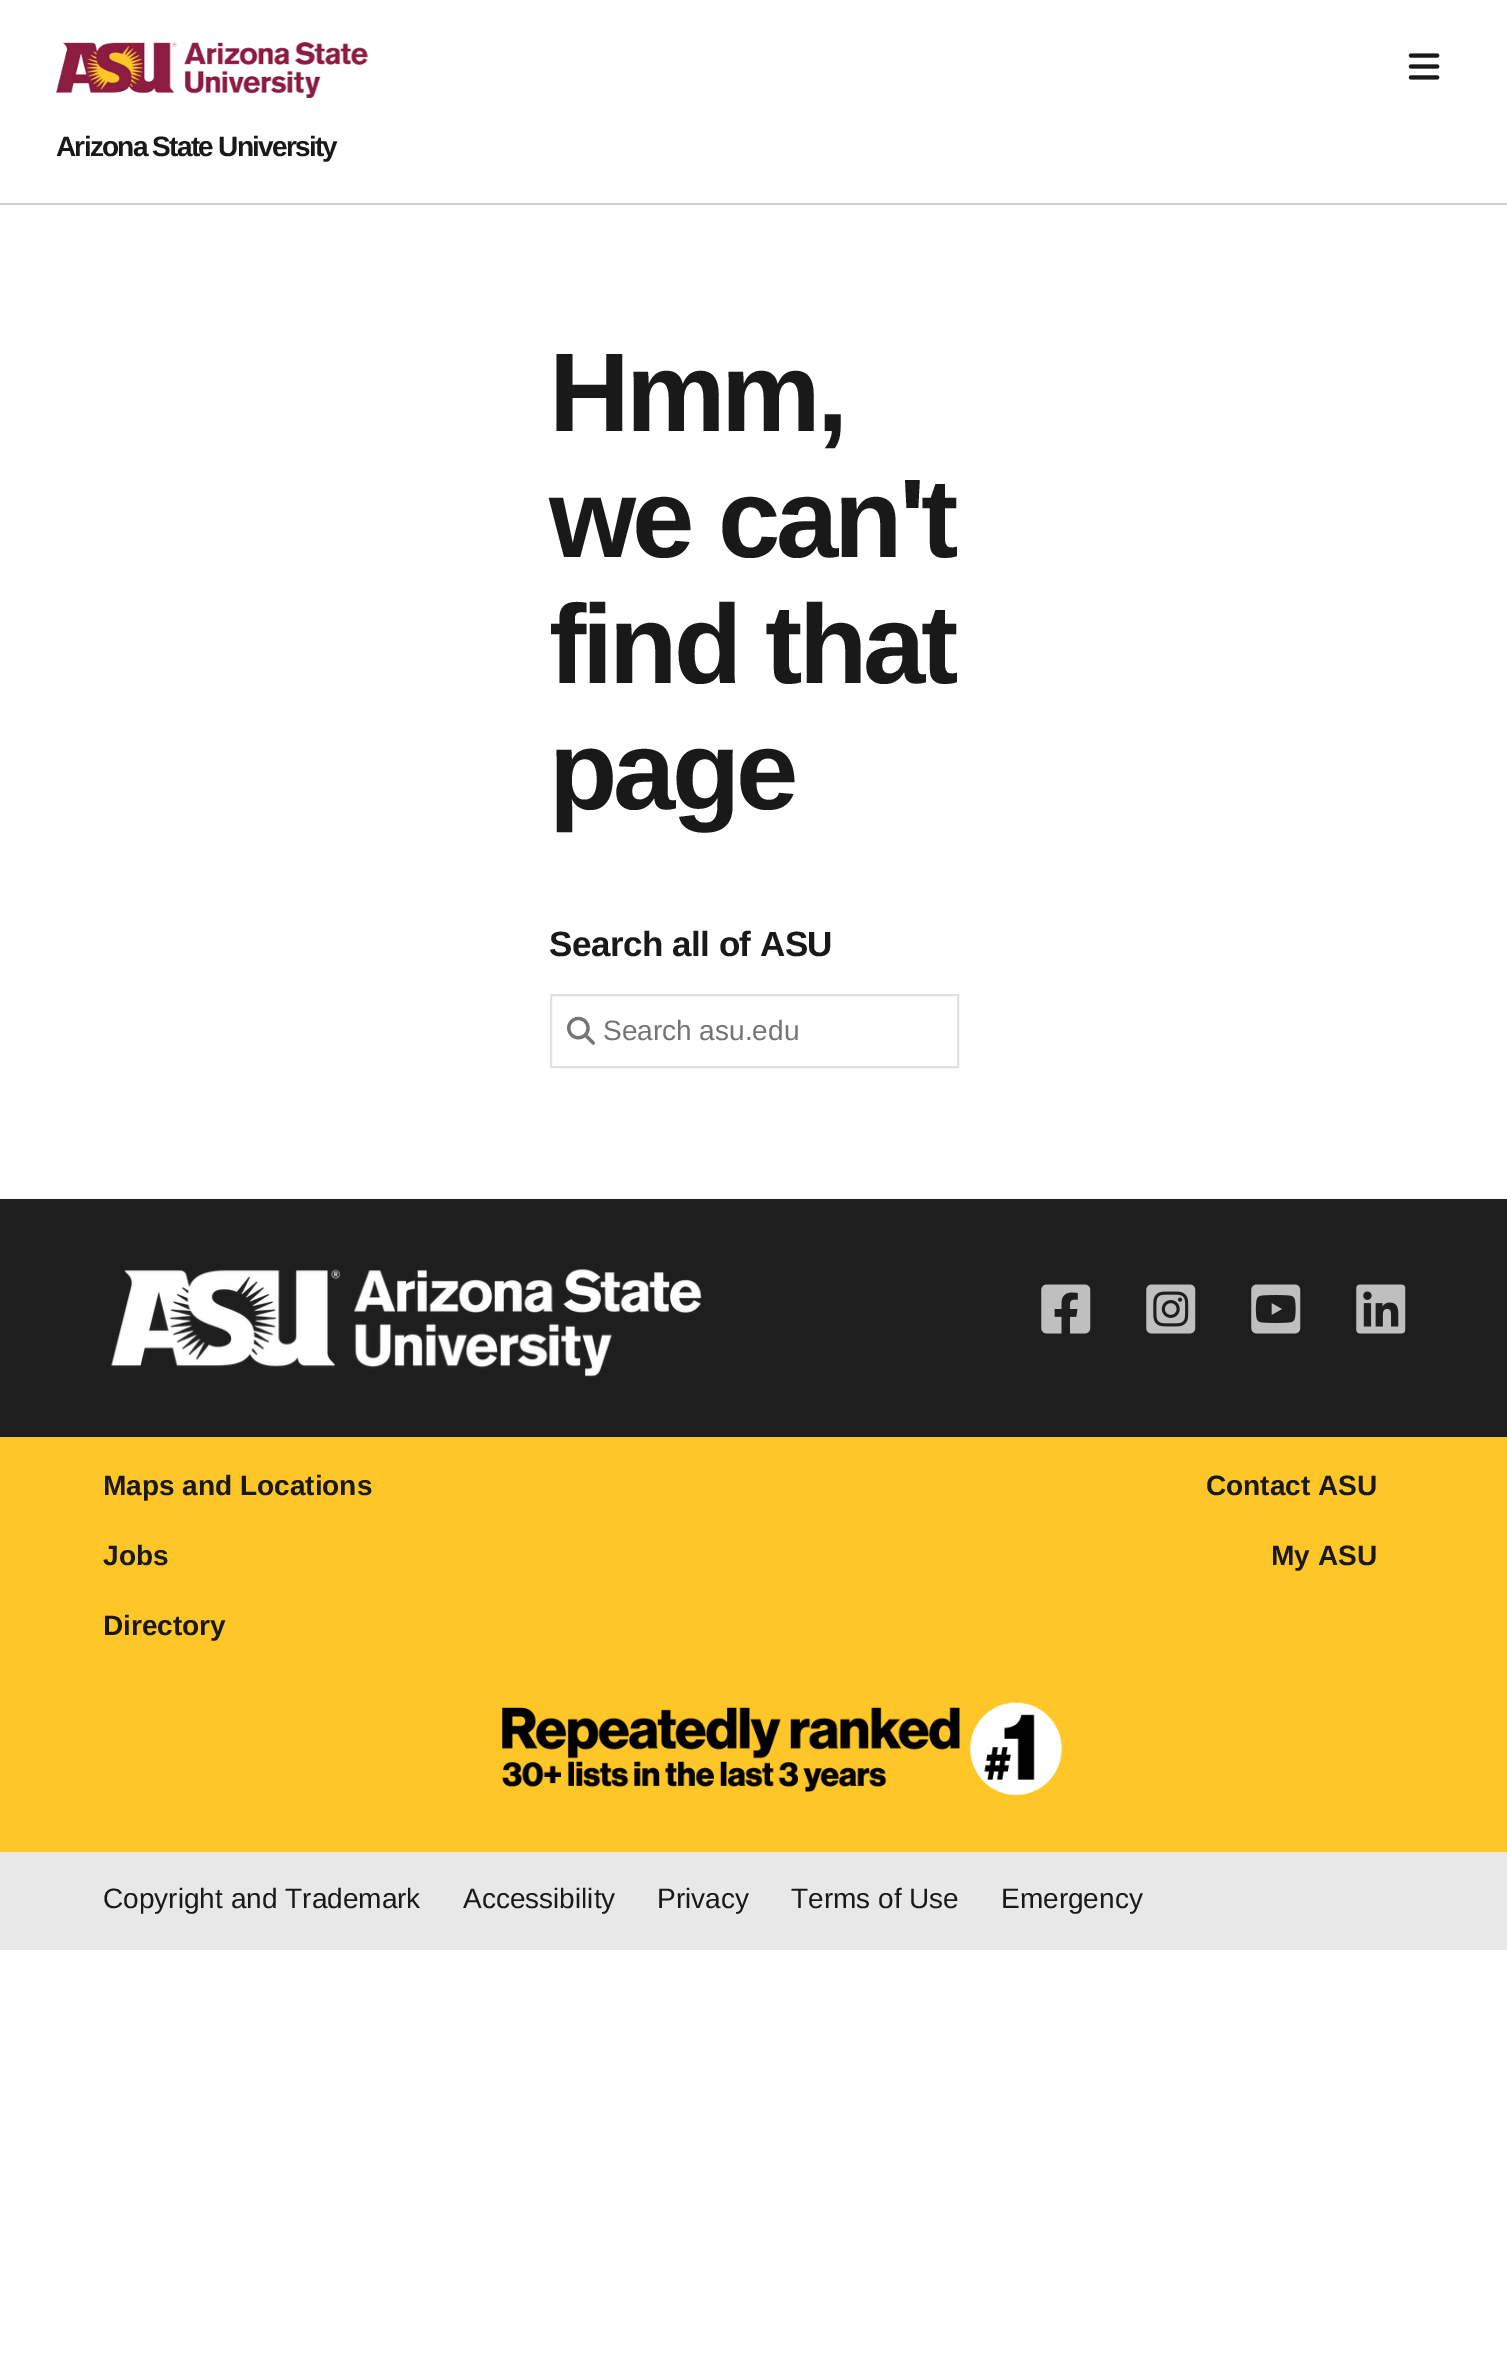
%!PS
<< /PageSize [1507 2374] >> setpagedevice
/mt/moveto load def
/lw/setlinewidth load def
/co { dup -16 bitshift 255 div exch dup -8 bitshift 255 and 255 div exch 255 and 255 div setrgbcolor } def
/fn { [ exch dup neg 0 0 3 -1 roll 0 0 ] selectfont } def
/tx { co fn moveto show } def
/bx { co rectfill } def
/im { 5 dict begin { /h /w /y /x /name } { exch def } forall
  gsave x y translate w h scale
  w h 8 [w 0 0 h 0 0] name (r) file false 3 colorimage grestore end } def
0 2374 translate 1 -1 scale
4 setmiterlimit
0 0 1507 2374 16#FFFFFF bx
0 203 1507 2 16#D0D0D0 bx
(media/1.raw) 56 42 312 56 im
(media/2.raw) 1408 53 32 27 im
16#DEE2E6 co
2 lw
551 995 407 72 rectstroke
(media/3.raw) 567 1016 28 29 im
0 1199 1507 238 16#1E1E1E bx
(media/4.raw) 111 1269 591 108 im
(media/5.raw) 1041 1284 50 50 im
(media/6.raw) 1146 1284 50 50 im
(media/7.raw) 1251 1284 50 50 im
(media/8.raw) 1356 1284 50 50 im
0 1437 1507 415 16#FFC627 bx
(media/9.raw) 502 1702 561 94 im
0 1852 1507 98 16#E8E8E8 bx
/LiberationSans-Bold 28 fn
16#191919 co
56 156 mt -1.75 0 (Arizona State University) ashow
/LiberationSans-Bold 112 fn
549 431 mt -4 0 (Hmm,) ashow
549 557 mt -4 0 (we can't) ashow
549 683 mt -4 0 (find that) ashow
549 809 mt -4 0 (page) ashow
/LiberationSans-Bold 35 fn
549 956 mt -.5 0 (Search all of ASU) ashow
(Search asu.edu) 603 1040 /LiberationSans-Regular 28 16#747474 tx
(Maps and Locations) 103 1495 /LiberationSans-Bold 28 16#191919 tx
(Contact ASU) 1206 1495 /LiberationSans-Bold 28 16#191919 tx
(Jobs) 103 1565 /LiberationSans-Bold 28 16#191919 tx
(My ASU) 1271 1565 /LiberationSans-Bold 28 16#191919 tx
(Directory) 103 1635 /LiberationSans-Bold 28 16#191919 tx
(Copyright and Trademark) 103 1908 /LiberationSans-Regular 28 16#191919 tx
(Accessibility) 463 1908 /LiberationSans-Regular 28 16#191919 tx
(Privacy) 657 1908 /LiberationSans-Regular 28 16#191919 tx
(Terms of Use) 791 1908 /LiberationSans-Regular 28 16#191919 tx
(Emergency) 1001 1908 /LiberationSans-Regular 28 16#191919 tx
showpage
